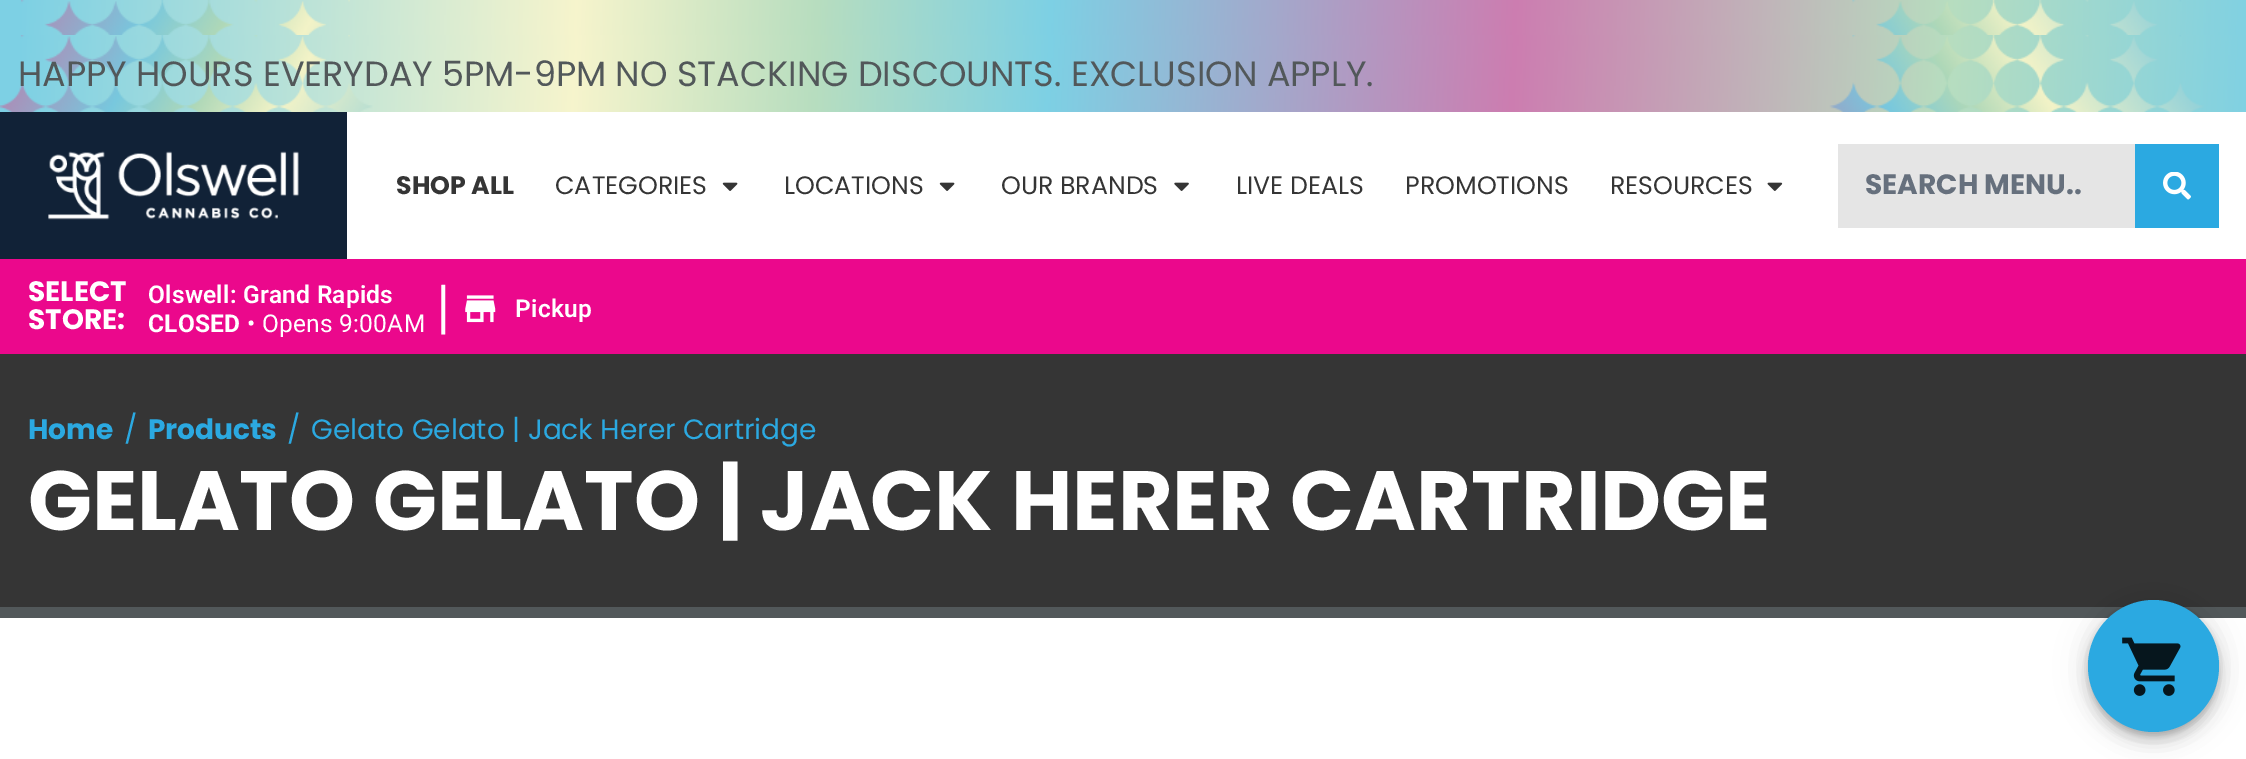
%!PS
<< /PageSize [2246 759] /PageUsesTransparency true >> setpagedevice
/mt/moveto load def
/fl/fill load def
/co { dup -16 bitshift 255 div exch dup -8 bitshift 255 and 255 div exch 255 and 255 div setrgbcolor } def
/fn { [ exch dup neg 0 0 3 -1 roll 0 0 ] selectfont } def
/tx { co fn moveto show } def
/bx { co rectfill } def
/al { dup .setfillconstantalpha .setstrokeconstantalpha } def
/rr { 5 dict begin { /r /h /w /y /x } { exch def } forall
  x r add y moveto x w add y 2 copy h add r arct x w add y h add x 1 index r arct
  x y h add x y r arct x y 2 copy exch w add exch r arct closepath end } def
/sh { 12 dict begin { /a /b /q /h /w /y /x } { exch def } forall gsave /was 0 def
  9 -2 -9 { dup b mul 4 div /e exch def 1 sub .425 mul 2.718 exch exp 1 add a .99 .min exch div /now exch def
    1 1 now sub 1 was sub div sub al /was now def
    w h .min e 2 mul add 0 gt { x e sub y e sub w e 2 mul add h e 2 mul add
      q e add b .6 mul add w h .min 2 div e add .min 0 .max rr fill } if } for grestore end } def
/im { 5 dict begin { /h /w /y /x /name } { exch def } forall
  gsave x y translate w h scale
  w h 8 [w 0 0 h 0 0] name (r) file false 3 colorimage grestore end } def
0 .pushpdf14devicefilter
0 759 translate 1 -1 scale
4 setmiterlimit
0 0 2246 759 16#FFFFFF bx
(media/1.raw) 0 0 2246 35 im
(media/2.raw) 0 35 2246 77 im
0 112 347 147 16#112237 bx
(media/3.raw) 48 151 251 69 im
(media/4.raw) 722 182 16 9 im
(media/4.raw) 939 182 16 9 im
(media/5.raw) 1174 182 15 9 im
(media/6.raw) 1767 182 16 9 im
1838 144 297 84 16#E5E5E5 bx
2135 144 84 84 16#2BA9E1 bx
(media/7.raw) 2163 172 28 28 im
0 259 2246 95 16#EB088C bx
(media/8.raw) 465 295 31 28 im
0 354 2246 253 16#353535 bx
0 607 2246 11 16#52585A bx
16#000000 co
2088 602 131 131 65.5 16 .12 sh
2088 611 131 131 65.5 9 .14 sh
2090 607 127 128 63.5 4.5 .2 sh
16#2BA9E1 co
2088 600 131 132 65.5 rr fl
(media/9.raw) 2122 637 59 59 im
(HAPPY HOURS EVERYDAY 5PM-9PM NO STACKING DISCOUNTS. EXCLUSION APPLY.) 18 86 /Poppins-Regular 35 16#52585A tx
(SHOP ALL) 396 194 /Poppins-Bold 25.25 16#353535 tx
(CATEGORIES) 555 194 /Poppins-Regular 25.25 16#353535 tx
(LOCATIONS) 784 194 /Poppins-Regular 25.25 16#353535 tx
(OUR BRANDS) 1001 194 /Poppins-Regular 25.25 16#353535 tx
(LIVE DEALS) 1236 194 /Poppins-Regular 25.25 16#353535 tx
(PROMOTIONS) 1405 194 /Poppins-Regular 25.25 16#353535 tx
(RESOURCES) 1610 194 /Poppins-Regular 25.25 16#353535 tx
(SEARCH MENU..) 1865 194 /Poppins-Bold 28 16#66707D tx
(SELECT) 28 301 /Poppins-Bold 28 16#FFFFFF tx
(STORE:) 28 329 /Poppins-Bold 28 16#FFFFFF tx
/Roboto-SemiBold 24.5 fn
148 303 mt .25 0 (Olswell: Grand Rapids) ashow
/Roboto-Bold 24.5 fn
148 332 mt .25 0 (CLOSED) ashow
/Roboto-Regular 24.5 fn
247 332 mt .25 0 (• Opens 9:00AM) ashow
(|) 436 329 /Poppins-Light 56 16#FFFFFF tx
/Roboto-SemiBold 24.5 fn
515 317 mt .25 0 (Pickup) ashow
(Home) 28 439 /Poppins-Bold 28 16#2BA9E1 tx
(/) 124 439 /Poppins-Regular 28 16#2BA9E1 tx
(Products) 148 439 /Poppins-Bold 28 16#2BA9E1 tx
(/) 287 439 /Poppins-Regular 28 16#2BA9E1 tx
(Gelato Gelato | Jack Herer Cartridge) 311 439 /Poppins-Regular 28 16#2BA9E1 tx
(GELATO GELATO | JACK HERER CARTRIDGE) 28 530 /Poppins-Bold 84 16#FFFFFF tx
.poppdf14devicefilter showpage
